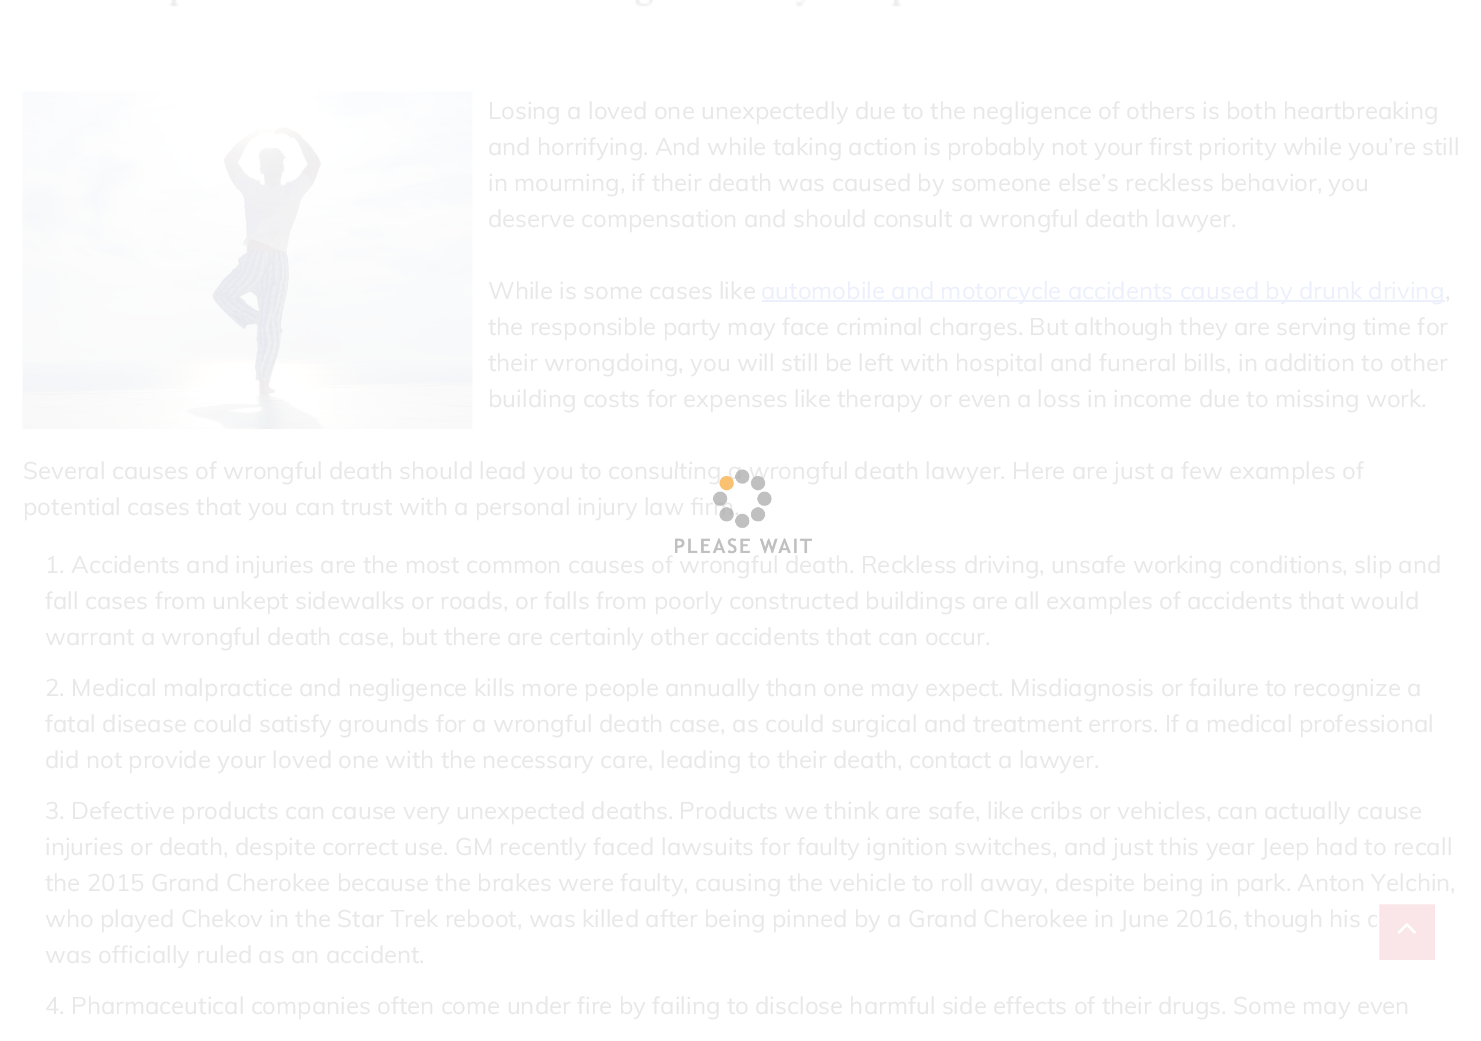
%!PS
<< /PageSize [1481 1041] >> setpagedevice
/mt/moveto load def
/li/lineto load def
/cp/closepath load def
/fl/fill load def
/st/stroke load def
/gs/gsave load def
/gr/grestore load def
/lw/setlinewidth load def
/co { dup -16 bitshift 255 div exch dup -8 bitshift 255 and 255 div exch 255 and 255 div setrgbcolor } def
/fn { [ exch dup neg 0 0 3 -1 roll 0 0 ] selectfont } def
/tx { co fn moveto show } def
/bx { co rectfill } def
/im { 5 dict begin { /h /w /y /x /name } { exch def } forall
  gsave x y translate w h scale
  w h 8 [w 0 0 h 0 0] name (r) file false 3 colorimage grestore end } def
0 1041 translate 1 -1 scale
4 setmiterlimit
0 0 1481 1041 16#FFFFFF bx
(media/1.raw) 168 0 734 7 im
(media/2.raw) 22 91 451 338 im
762 300 683 2 16#ECF0FC bx
(Losing a loved one unexpectedly due to the negligence of others is both heartbreaking) 488 119 /Muli-Regular 24 16#E8E8E8 tx
(and horrifying. And while taking action is probably not your first priority while you’re still) 488 155 /Muli-Regular 24 16#E8E8E8 tx
(in mourning, if their death was caused by someone else’s reckless behavior, you) 488 191 /Muli-Regular 24 16#E8E8E8 tx
(deserve compensation and should consult a wrongful death lawyer.) 488 227 /Muli-Regular 24 16#E8E8E8 tx
(While is some cases like) 488 299 /Muli-Regular 24 16#E8E8E8 tx
(automobile and motorcycle accidents caused by drunk driving) 761 299 /Muli-Regular 24 16#ECF0FC tx
(,) 1445 299 /Muli-Regular 24 16#E8E8E8 tx
(the responsible party may face criminal charges. But although they are serving time for) 488 335 /Muli-Regular 24 16#E8E8E8 tx
(their wrongdoing, you will still be left with hospital and funeral bills, in addition to other) 488 371 /Muli-Regular 24 16#E8E8E8 tx
(building costs for expenses like therapy or even a loss in income due to missing work.) 488 407 /Muli-Regular 24 16#E8E8E8 tx
(Several causes of wrongful death should lead you to consulting a wrongful death lawyer. Here are just a few examples of) 23 479 /Muli-Regular 24 16#E8E8E8 tx
(potential cases that you can trust with a personal injury law firm.) 23 515 /Muli-Regular 24 16#E8E8E8 tx
(1. Accidents and injuries are the most common causes of wrongful death. Reckless driving, unsafe working conditions, slip and) 45 573 /Muli-Regular 24 16#E8E8E8 tx
(fall cases from unkept sidewalks or roads, or falls from poorly constructed buildings are all examples of accidents that would) 45 609 /Muli-Regular 24 16#E8E8E8 tx
(warrant a wrongful death case, but there are certainly other accidents that can occur.) 45 645 /Muli-Regular 24 16#E8E8E8 tx
(2. Medical malpractice and negligence kills more people annually than one may expect. Misdiagnosis or failure to recognize a) 45 696 /Muli-Regular 24 16#E8E8E8 tx
(fatal disease could satisfy grounds for a wrongful death case, as could surgical and treatment errors. If a medical professional) 45 732 /Muli-Regular 24 16#E8E8E8 tx
(did not provide your loved one with the necessary care, leading to their death, contact a lawyer.) 45 768 /Muli-Regular 24 16#E8E8E8 tx
(3. Defective products can cause very unexpected deaths. Products we think are safe, like cribs or vehicles, can actually cause) 45 819 /Muli-Regular 24 16#E8E8E8 tx
(injuries or death, despite correct use. GM recently faced lawsuits for faulty ignition switches, and just this year Jeep had to recall) 45 855 /Muli-Regular 24 16#E8E8E8 tx
(the 2015 Grand Cherokee because the brakes were faulty, causing the vehicle to roll away, despite being in park. Anton Yelchin,) 45 891 /Muli-Regular 24 16#E8E8E8 tx
(who played Chekov in the Star Trek reboot, was killed after being pinned by a Grand Cherokee in June 2016, though his d) 45 927 /Muli-Regular 24 16#E8E8E8 tx
(was officially ruled as an accident.) 45 963 /Muli-Regular 24 16#E8E8E8 tx
(4. Pharmaceutical companies often come under fire by failing to disclose harmful side effects of their drugs. Some may even) 45 1014 /Muli-Regular 24 16#E8E8E8 tx
(media/3.raw) 675 469 137 85 im
16#FAE6E8 co
1378 903 mt 1436 903 li 1436 961 li 1378 961 li cp gs fl gr
16#FFFFFF co
2 lw
st
(media/4.raw) 1397 923 19 11 im
showpage
